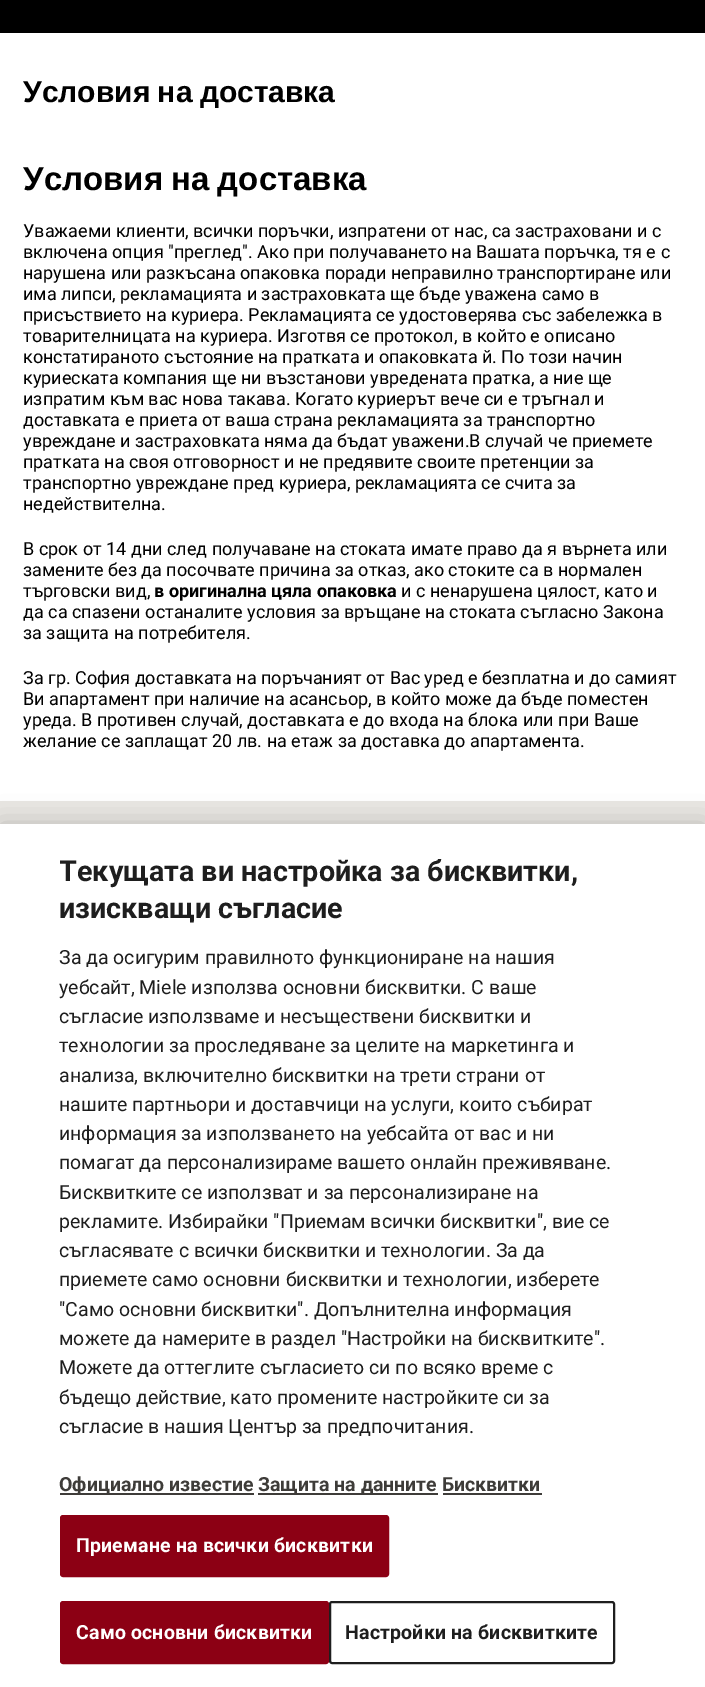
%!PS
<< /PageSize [705 1687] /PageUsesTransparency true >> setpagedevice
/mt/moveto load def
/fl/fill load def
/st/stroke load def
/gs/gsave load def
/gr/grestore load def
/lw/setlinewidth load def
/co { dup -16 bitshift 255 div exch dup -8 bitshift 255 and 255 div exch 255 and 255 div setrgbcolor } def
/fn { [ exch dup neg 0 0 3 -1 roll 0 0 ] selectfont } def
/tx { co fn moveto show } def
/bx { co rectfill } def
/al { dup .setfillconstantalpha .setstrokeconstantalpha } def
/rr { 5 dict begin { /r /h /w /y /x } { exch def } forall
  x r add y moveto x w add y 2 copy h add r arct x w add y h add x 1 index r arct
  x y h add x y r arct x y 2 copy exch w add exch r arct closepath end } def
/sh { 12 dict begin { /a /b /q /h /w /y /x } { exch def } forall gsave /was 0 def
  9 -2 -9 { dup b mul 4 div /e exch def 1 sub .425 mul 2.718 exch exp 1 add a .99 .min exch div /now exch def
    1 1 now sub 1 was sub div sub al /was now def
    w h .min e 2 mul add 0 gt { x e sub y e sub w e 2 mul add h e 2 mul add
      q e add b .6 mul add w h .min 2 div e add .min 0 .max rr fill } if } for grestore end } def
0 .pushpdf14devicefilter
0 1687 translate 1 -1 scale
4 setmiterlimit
0 0 705 1687 16#FFFFFF bx
0 0 705 33 16#000000 bx
0 801 705 23 16#EAE8E4 bx
16#000000 co
0 824 705 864 0 13.5 .2 sh
0 824 705 863 16#FFFFFF bx
60 1493 194 2 16#3E3C39 bx
258 1493 180 2 16#3E3C39 bx
443 1493 99 2 16#3E3C39 bx
16#8C0014 co
61 1516 327 60 2 rr gs fl gr
2 lw
st
61 1602 267 61 2 rr gs fl gr
st
16#1E1E1E co
330 1602 284 61 2 rr st
/LiberationSans-Bold 30 fn
16#000000 co
23 102 mt -1 0 32 (Условия на доставка) widthshow
/LiberationSans-Bold 33 fn
23 190 mt -1 0 32 (Условия на доставка) widthshow
(Уважаеми клиенти, всички поръчки, изпратени от нас, са застраховани и с) 23 237 /Roboto-Regular 18 16#000000 tx
(включена опция "преглед". Ако при получаването на Вашата поръчка, тя е с) 23 258 /Roboto-Regular 18 16#000000 tx
(нарушена или разкъсана опаковка поради неправилно транспортиране или) 23 279 /Roboto-Regular 18 16#000000 tx
(има липси, рекламацията и застраховката ще бъде уважена само в) 23 300 /Roboto-Regular 18 16#000000 tx
(присъствието на куриера. Рекламацията се удостоверява със забележка в) 23 321 /Roboto-Regular 18 16#000000 tx
(товарителницата на куриера. Изготвя се протокол, в който е описано) 23 342 /Roboto-Regular 18 16#000000 tx
(констатираното състояние на пратката и опаковката й. По този начин) 23 363 /Roboto-Regular 18 16#000000 tx
(куриеската компания ще ни възстанови увредената пратка, а ние ще) 23 384 /Roboto-Regular 18 16#000000 tx
(изпратим към вас нова такава. Когато куриерът вече си е тръгнал и) 23 405 /Roboto-Regular 18 16#000000 tx
(доставката е приета от ваша страна рекламацията за транспортно) 23 426 /Roboto-Regular 18 16#000000 tx
(увреждане и застраховката няма да бъдат уважени.В случай че приемете) 23 447 /Roboto-Regular 18 16#000000 tx
(пратката на своя отговорност и не предявите своите претенции за) 23 468 /Roboto-Regular 18 16#000000 tx
(транспортно увреждане пред куриера, рекламацията се счита за) 23 489 /Roboto-Regular 18 16#000000 tx
(недействителна.) 23 510 /Roboto-Regular 18 16#000000 tx
(В срок от 14 дни след получаване на стоката имате право да я върнета или) 23 555 /Roboto-Regular 18 16#000000 tx
(замените без да посочвате причина за отказ, ако стоките са в нормален) 23 576 /Roboto-Regular 18 16#000000 tx
(търговски вид,) 23 597 /Roboto-Regular 18 16#000000 tx
(в оригинална цяла опаковка) 154 597 /Roboto-Bold 18 16#000000 tx
(и с ненарушена цялост, като и) 401 597 /Roboto-Regular 18 16#000000 tx
(да са спазени останалите условия за връщане на стоката съгласно Закона) 23 618 /Roboto-Regular 18 16#000000 tx
(за защита на потребителя.) 23 639 /Roboto-Regular 18 16#000000 tx
(За гр. София доставката на поръчаният от Вас уред е безплатна и до самият) 23 684 /Roboto-Regular 18 16#000000 tx
(Ви апартамент при наличие на асансьор, в който може да бъде поместен) 23 705 /Roboto-Regular 18 16#000000 tx
(уреда. В противен случай, доставката е до входа на блока или при Ваше) 23 726 /Roboto-Regular 18 16#000000 tx
(желание се заплащат 20 лв. на етаж за доставка до апартамента.) 23 747 /Roboto-Regular 18 16#000000 tx
gs
60 854 554 646 rectclip
(Текущата ви настройка за бисквитки,) 59 881 /Roboto-Bold 28.75 16#1E1E1E tx
gr
(изискващи съгласие) 59 918 /Roboto-Bold 28.75 16#1E1E1E tx
(За да осигурим правилното функциониране на нашия) 59 964 /Roboto-Regular 19.5 16#1E1E1E tx
(уебсайт, Miele използва основни бисквитки. С ваше) 59 994 /Roboto-Regular 19.5 16#1E1E1E tx
(съгласие използваме и несъществени бисквитки и) 59 1023 /Roboto-Regular 19.5 16#1E1E1E tx
(технологии за проследяване за целите на маркетинга и) 59 1052 /Roboto-Regular 19.5 16#1E1E1E tx
(анализа, включително бисквитки на трети страни от) 59 1082 /Roboto-Regular 19.5 16#1E1E1E tx
(нашите партньори и доставчици на услуги, които събират) 59 1111 /Roboto-Regular 19.5 16#1E1E1E tx
(информация за използването на уебсайта от вас и ни) 59 1140 /Roboto-Regular 19.5 16#1E1E1E tx
(помагат да персонализираме вашето онлайн преживяване.) 59 1169 /Roboto-Regular 19.5 16#1E1E1E tx
(Бисквитките се използват и за персонализиране на) 59 1199 /Roboto-Regular 19.5 16#1E1E1E tx
(рекламите. Избирайки "Приемам всички бисквитки", вие се) 59 1228 /Roboto-Regular 19.5 16#1E1E1E tx
(съгласявате с всички бисквитки и технологии. За да) 59 1257 /Roboto-Regular 19.5 16#1E1E1E tx
(приемете само основни бисквитки и технологии, изберете) 59 1286 /Roboto-Regular 19.5 16#1E1E1E tx
("Само основни бисквитки". Допълнителна информация) 59 1316 /Roboto-Regular 19.5 16#1E1E1E tx
(можете да намерите в раздел "Настройки на бисквитките".) 59 1345 /Roboto-Regular 19.5 16#1E1E1E tx
(Можете да оттеглите съгласието си по всяко време с) 59 1374 /Roboto-Regular 19.5 16#1E1E1E tx
(бъдещо действие, като промените настройките си за) 59 1404 /Roboto-Regular 19.5 16#1E1E1E tx
(съгласие в нашия Център за предпочитания.) 59 1433 /Roboto-Regular 19.5 16#1E1E1E tx
(Официално известие) 59 1491 /Roboto-Bold 19.5 16#3E3C39 tx
(Защита на данните Бисквитки) 258 1491 /Roboto-Bold 19.5 16#3E3C39 tx
16#FFFFFF co
76 1552 mt .2 0 (Приемане на всички бисквитки) ashow
76 1639 mt .2 0 (Само основни бисквитки) ashow
16#1E1E1E co
345 1639 mt .2 0 (Настройки на бисквитките) ashow
.poppdf14devicefilter showpage
